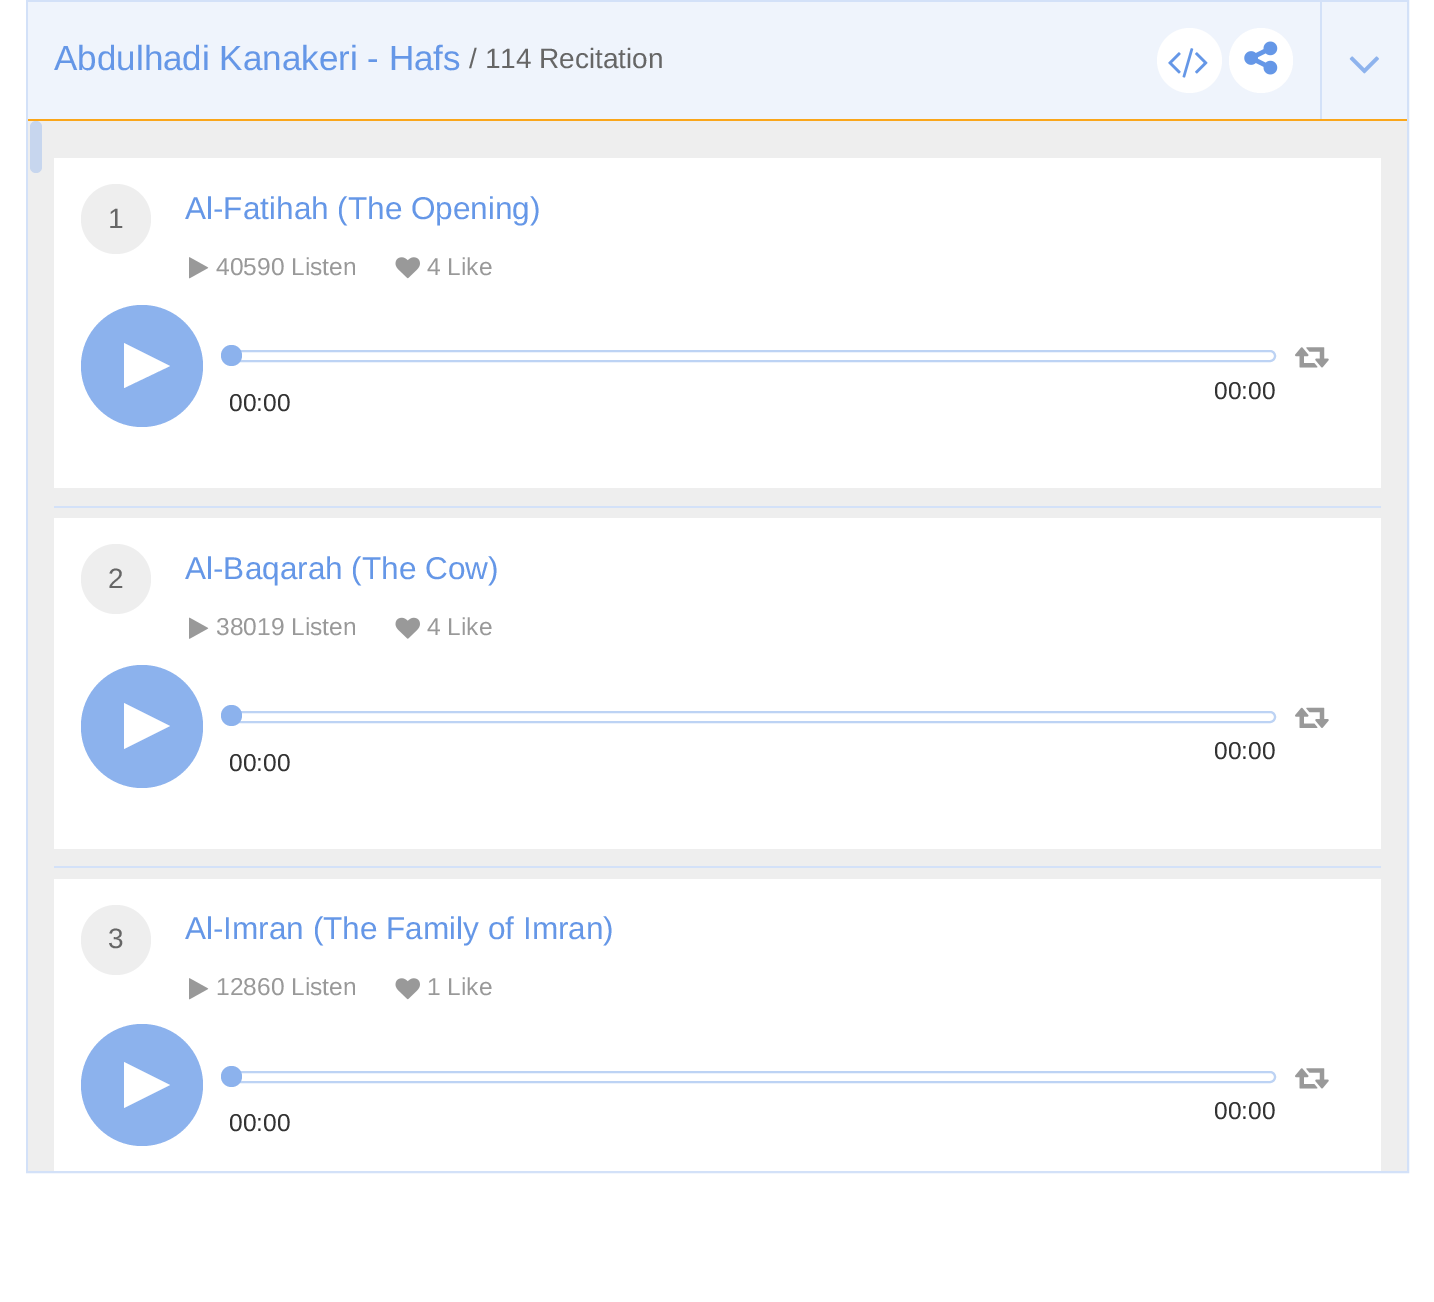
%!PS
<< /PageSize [1434 1302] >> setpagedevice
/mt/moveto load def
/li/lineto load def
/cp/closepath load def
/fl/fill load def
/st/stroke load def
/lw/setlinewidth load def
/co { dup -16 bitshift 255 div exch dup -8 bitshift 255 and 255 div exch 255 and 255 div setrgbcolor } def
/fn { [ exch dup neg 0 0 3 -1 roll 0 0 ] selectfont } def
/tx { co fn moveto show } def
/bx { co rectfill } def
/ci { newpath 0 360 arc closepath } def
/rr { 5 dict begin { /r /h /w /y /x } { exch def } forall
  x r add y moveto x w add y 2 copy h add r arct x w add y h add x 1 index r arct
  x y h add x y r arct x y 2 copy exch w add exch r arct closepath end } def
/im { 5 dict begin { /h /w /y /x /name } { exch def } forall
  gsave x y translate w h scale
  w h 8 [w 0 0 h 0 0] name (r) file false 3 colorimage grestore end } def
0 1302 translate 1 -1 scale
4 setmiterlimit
0 0 1434 1302 16#FFFFFF bx
16#D3E1F8 co
2 lw
27 1 1381 1171 rectstroke
28 2 1379 117 16#EFF4FC bx
28 119 1379 2 16#FAA61A bx
16#FFFFFF co
1189.5 60.5 32.5 ci fl
(media/1.raw) 1168 48 40 30 im
1229 28 64 65 32 rr fl
(media/2.raw) 1244 41 34 34 im
1320 2 2 117 16#D3E1F8 bx
(media/3.raw) 1349 56 30 18 im
28 121 1379 1050 16#EEEEEE bx
16#C7D6EE co
30 121 12 52 6 rr fl
54 506 1327 2 16#D3E1F8 bx
54 158 1327 330 16#FFFFFF bx
16#EEEEEE co
116 219 35 ci fl
(media/4.raw) 189 257 20 22 im
(media/5.raw) 395 257 25 22 im
(media/6.raw) 1295 347 34 21 im
16#BDD3F4 co
230 351 1045 10 5 rr st
16#8CB2ED co
231.5 355.5 10.5 ci fl
142 366 61 ci fl
16#FFFFFF co
170 366 mt 124 388 li 124 343 li cp fl
54 866 1327 2 16#D3E1F8 bx
54 518 1327 331 16#FFFFFF bx
16#EEEEEE co
116 579 35 ci fl
(media/7.raw) 189 617 20 22 im
(media/8.raw) 395 617 25 22 im
(media/9.raw) 1295 707 34 21 im
16#BDD3F4 co
230 712 1045 10 5 rr st
16#8CB2ED co
231.5 715.5 10.5 ci fl
81 665 122 123 61 rr fl
16#FFFFFF co
170 726 mt 124 749 li 124 703 li cp fl
54 879 1327 292 16#FFFFFF bx
16#EEEEEE co
116 940 35 ci fl
(media/4.raw) 189 978 20 22 im
(media/5.raw) 395 978 25 22 im
(media/6.raw) 1295 1068 34 21 im
16#BDD3F4 co
230 1072 1045 10 5 rr st
16#8CB2ED co
231.5 1076.5 10.5 ci fl
142 1085 61 ci fl
16#FFFFFF co
170 1085 mt 124 1108 li 124 1062 li cp fl
(Abdulhadi Kanakeri - Hafs) 54 70 /LiberationSans-Regular 35 16#6597E7 tx
(/ 114 Recitation) 469 68 /LiberationSans-Regular 28 16#666666 tx
(1) 108 228 /LiberationSans-Regular 28 16#666666 tx
(Al-Fatihah \(The Opening\)) 185 219 /LiberationSans-Regular 31.5 16#6597E7 tx
(40590 Listen) 216 275 /LiberationSans-Regular 24.5 16#999999 tx
(4 Like) 427 275 /LiberationSans-Regular 24.5 16#999999 tx
(00:00) 1214 399 /LiberationSans-Regular 24.5 16#333333 tx
(00:00) 229 411 /LiberationSans-Regular 24.5 16#333333 tx
(2) 108 588 /LiberationSans-Regular 28 16#666666 tx
(Al-Baqarah \(The Cow\)) 185 579 /LiberationSans-Regular 31.5 16#6597E7 tx
(38019 Listen) 216 635 /LiberationSans-Regular 24.5 16#999999 tx
(4 Like) 427 635 /LiberationSans-Regular 24.5 16#999999 tx
(00:00) 1214 759 /LiberationSans-Regular 24.5 16#333333 tx
(00:00) 229 771 /LiberationSans-Regular 24.5 16#333333 tx
(3) 108 948 /LiberationSans-Regular 28 16#666666 tx
(Al-Imran \(The Family of Imran\)) 185 939 /LiberationSans-Regular 31.5 16#6597E7 tx
(12860 Listen) 216 995 /LiberationSans-Regular 24.5 16#999999 tx
(1 Like) 427 995 /LiberationSans-Regular 24.5 16#999999 tx
(00:00) 1214 1119 /LiberationSans-Regular 24.5 16#333333 tx
(00:00) 229 1131 /LiberationSans-Regular 24.5 16#333333 tx
showpage
